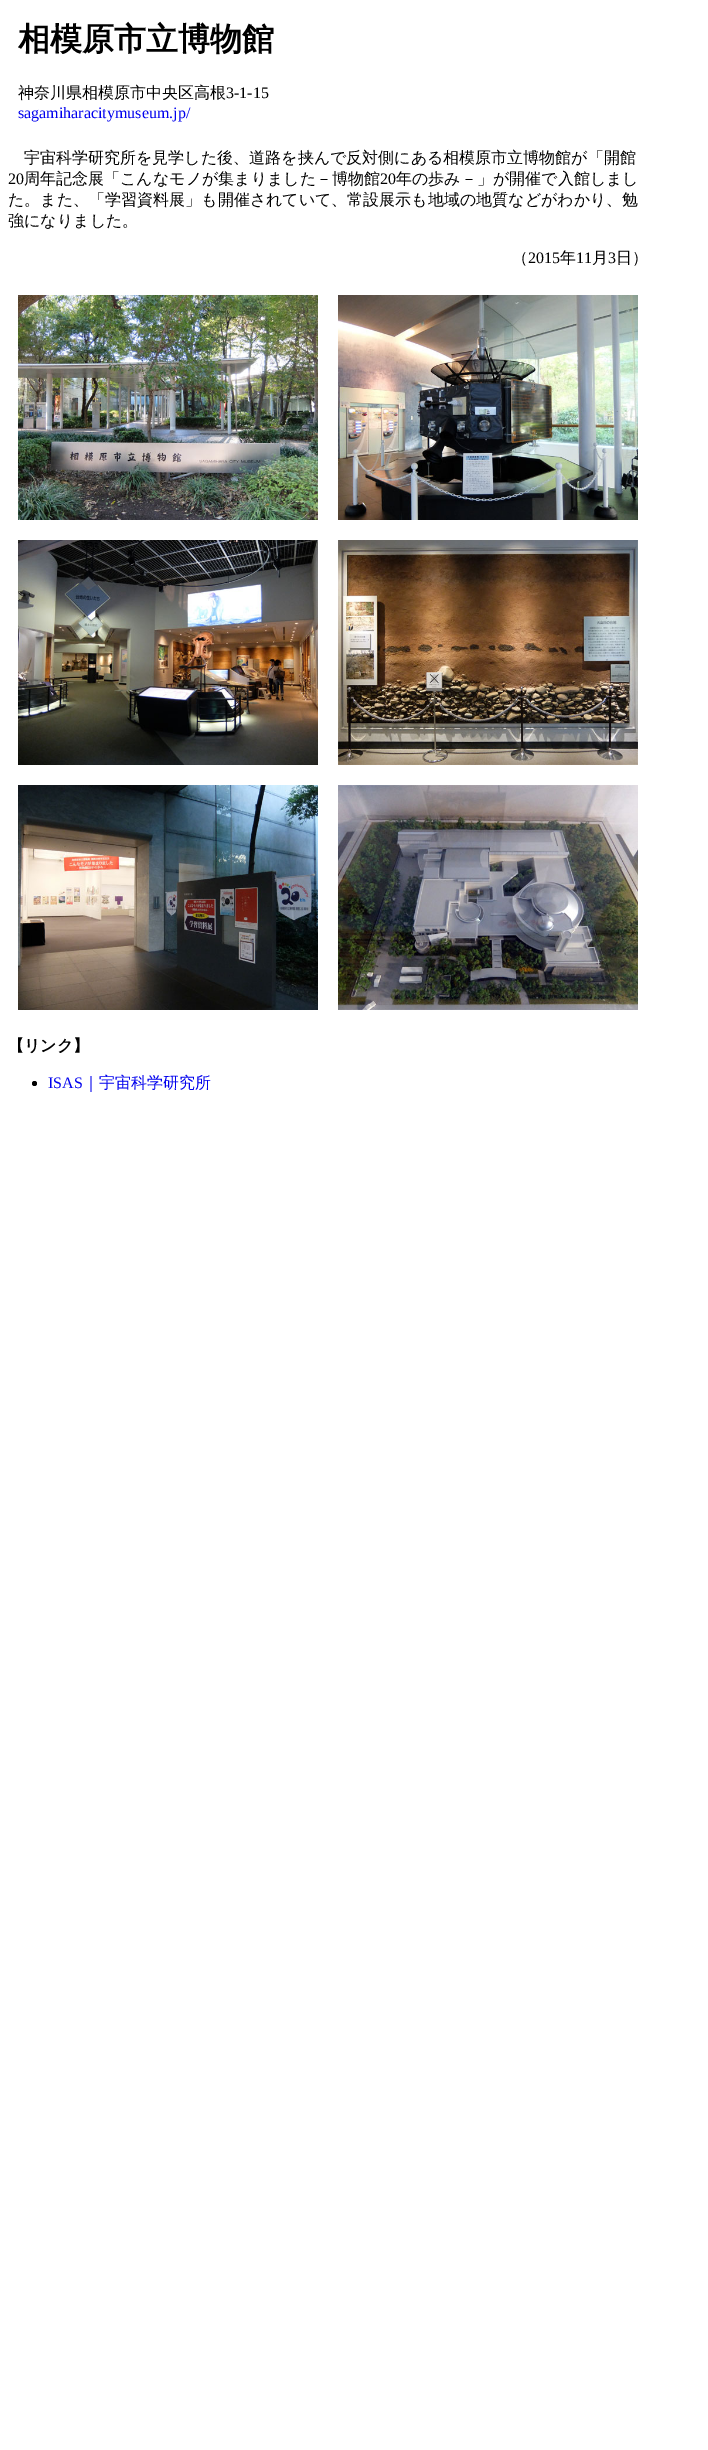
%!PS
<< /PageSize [708 2450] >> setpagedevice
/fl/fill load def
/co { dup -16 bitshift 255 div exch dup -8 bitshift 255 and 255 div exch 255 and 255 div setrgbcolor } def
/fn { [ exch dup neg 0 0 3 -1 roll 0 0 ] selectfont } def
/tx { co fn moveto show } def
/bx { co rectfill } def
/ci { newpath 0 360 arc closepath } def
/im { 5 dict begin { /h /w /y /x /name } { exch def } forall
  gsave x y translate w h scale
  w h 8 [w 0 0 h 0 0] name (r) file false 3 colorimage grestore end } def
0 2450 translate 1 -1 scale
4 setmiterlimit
0 0 708 2450 16#FFFFFF bx
(media/1.raw) 18 295 300 225 im
(media/2.raw) 338 295 300 225 im
(media/3.raw) 18 540 300 225 im
(media/4.raw) 338 540 300 225 im
(media/5.raw) 18 785 300 225 im
(media/6.raw) 338 785 300 225 im
16#000000 co
34.5 1083.5 2.5 ci fl
(相模原市立博物館) 18 50 /WenQuanYiZenHei-Bold 32 16#000000 tx
(神奈川県相模原市中央区高根) 18 98 /WenQuanYiZenHei-Medium 16 16#000000 tx
(3-1-15) 226 98 /LiberationSerif-Regular 16 16#000000 tx
(sagamiharacitymuseum.jp/) 18 118 /LiberationSerif-Regular 16 16#0000EE tx
(宇宙科学研究所を見学した後、道路を挟んで反対側にある相模原市立博物館が「開館) 24 163 /WenQuanYiZenHei-Medium 16 16#000000 tx
(20) 8 184 /LiberationSerif-Regular 16 16#000000 tx
(周年記念展「こんなモノが集まりました－博物館) 24 184 /WenQuanYiZenHei-Medium 16 16#000000 tx
(20) 380 184 /LiberationSerif-Regular 16 16#000000 tx
(年の歩み－」が開催で入館しまし) 396 184 /WenQuanYiZenHei-Medium 16 16#000000 tx
(た。また、「学習資料展」も開催されていて、常設展示も地域の地質などがわかり、勉) 8 205 /WenQuanYiZenHei-Medium 16 16#000000 tx
(強になりました。) 8 226 /WenQuanYiZenHei-Medium 16 16#000000 tx
(（) 512 263 /WenQuanYiZenHei-Medium 16 16#000000 tx
(2015) 528 263 /LiberationSerif-Regular 16 16#000000 tx
(年) 560 263 /WenQuanYiZenHei-Medium 16 16#000000 tx
(11) 576 263 /LiberationSerif-Regular 16 16#000000 tx
(月) 592 263 /WenQuanYiZenHei-Medium 16 16#000000 tx
(3) 608 263 /LiberationSerif-Regular 16 16#000000 tx
(日）) 616 263 /WenQuanYiZenHei-Medium 16 16#000000 tx
(【リンク】) 8 1051 /WenQuanYiZenHei-Bold 16 16#000000 tx
(ISAS) 48 1088 /LiberationSerif-Regular 16 16#0000EE tx
(｜宇宙科学研究所) 83 1088 /WenQuanYiZenHei-Medium 16 16#0000EE tx
showpage
